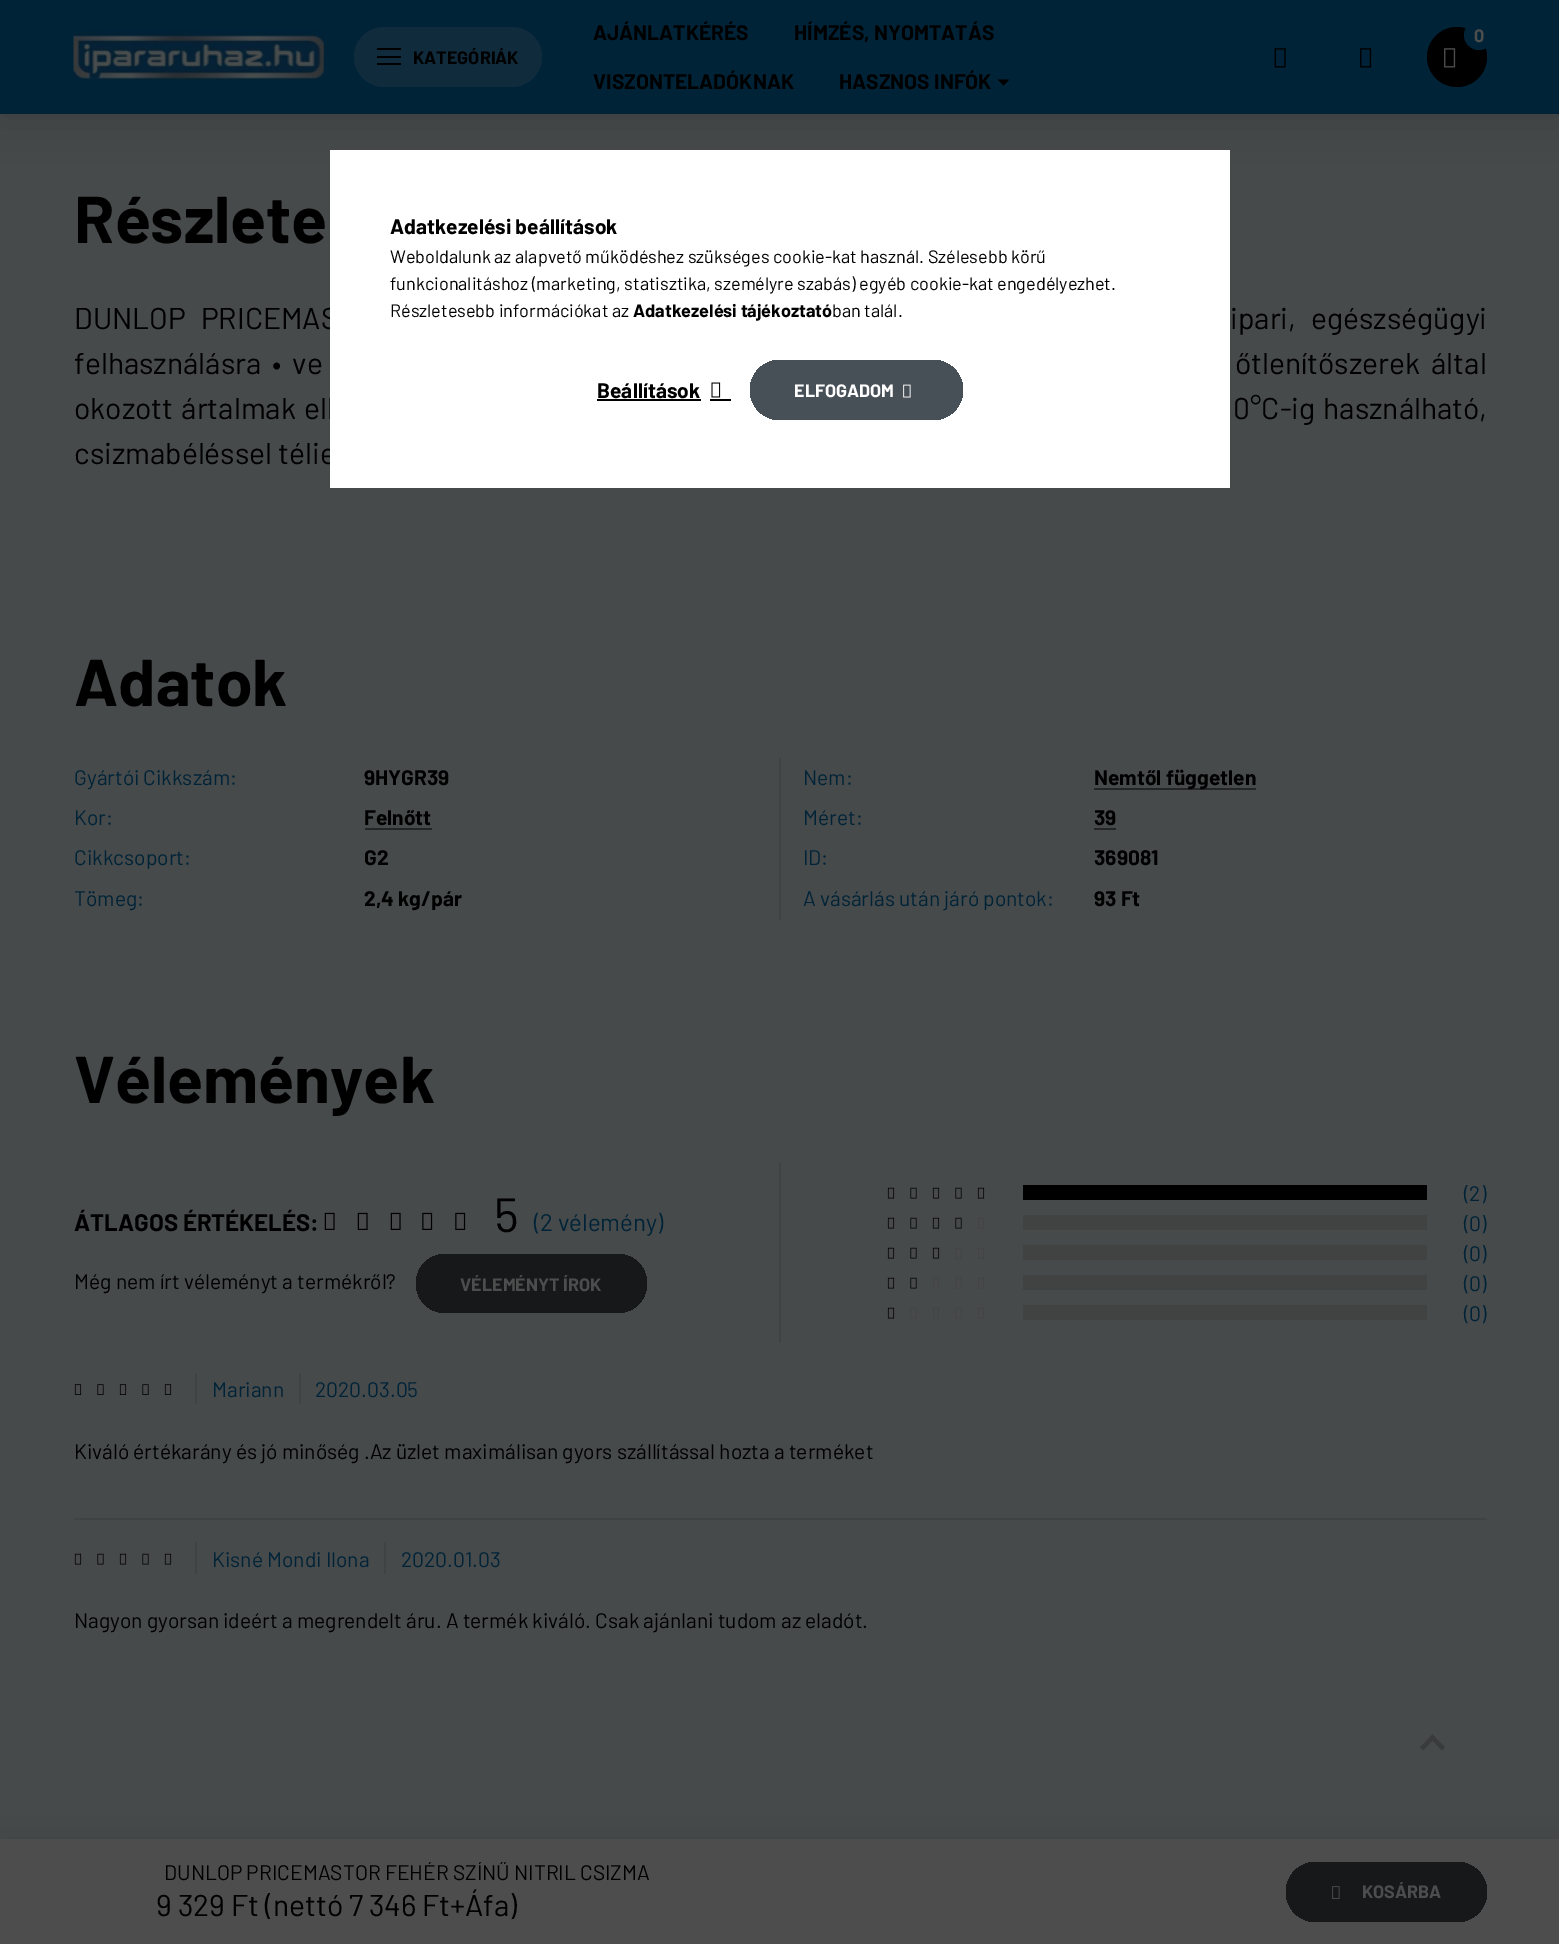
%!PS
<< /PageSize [1559 1944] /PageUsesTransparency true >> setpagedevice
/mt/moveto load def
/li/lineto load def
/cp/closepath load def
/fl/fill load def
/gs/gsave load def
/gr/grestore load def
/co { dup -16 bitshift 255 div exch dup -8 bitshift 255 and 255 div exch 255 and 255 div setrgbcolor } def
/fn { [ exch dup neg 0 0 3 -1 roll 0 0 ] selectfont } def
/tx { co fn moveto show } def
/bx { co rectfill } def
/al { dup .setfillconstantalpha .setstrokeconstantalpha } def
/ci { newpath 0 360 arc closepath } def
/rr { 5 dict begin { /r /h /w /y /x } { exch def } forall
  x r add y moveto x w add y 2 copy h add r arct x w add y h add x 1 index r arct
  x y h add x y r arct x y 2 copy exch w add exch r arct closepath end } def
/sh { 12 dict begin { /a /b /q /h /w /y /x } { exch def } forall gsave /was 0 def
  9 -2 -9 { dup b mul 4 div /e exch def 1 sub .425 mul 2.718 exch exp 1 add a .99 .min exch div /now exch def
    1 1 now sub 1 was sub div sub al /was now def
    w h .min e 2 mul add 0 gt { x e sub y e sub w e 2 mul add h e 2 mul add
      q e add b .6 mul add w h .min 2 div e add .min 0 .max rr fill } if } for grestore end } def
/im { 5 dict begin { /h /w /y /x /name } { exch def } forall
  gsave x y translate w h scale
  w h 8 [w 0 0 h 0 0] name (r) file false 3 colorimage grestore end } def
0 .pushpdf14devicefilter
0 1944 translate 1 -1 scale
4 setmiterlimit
0 0 1559 1944 16#474A4B bx
16#000000 co
0 0 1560 114 0 22.5 .2 sh
0 0 1559 114 16#002338 bx
(media/1.raw) 73 29 251 52 im
16#0F2B3C co
354 27 188 60 30 rr fl
377 48 24 2 16#000000 bx
377 56 24 2 16#000000 bx
377 63 24 2 16#000000 bx
997.5 79.5 mt 1009.5 79.5 li 1003.5 85.5 li cp fl
1457 57 30 ci fl
16#002338 co
1479 35 15 ci fl
(media/2.raw) 1444 48 12 20 im
(media/3.raw) 1274 48 12 20 im
(media/4.raw) 1360 48 12 20 im
779 758 2 162 16#414242 bx
1094 788 162 2 16#242526 bx
365 828 67 2 16#242526 bx
1094 828 22 2 16#242526 bx
779 1163 2 180 16#414242 bx
(media/5.raw) 324 1212 11 18 im
(media/5.raw) 357 1212 11 18 im
(media/5.raw) 390 1212 11 18 im
(media/6.raw) 422 1212 11 18 im
(media/6.raw) 455 1212 11 18 im
gs 416 1254 231 59 29.5 rr clip newpath
<< /ShadingType 2 /ColorSpace /DeviceRGB /Coords [416 1283 1109 1283] /Extend [true true] /Function << /FunctionType 3 /Domain [0 1] /Functions [<< /FunctionType 2 /Domain [0 1] /C0 [.086 .094 .102] /C1 [.086 .094 .102] /N 1 >> << /FunctionType 2 /Domain [0 1] /C0 [.086 .094 .102] /C1 [0 0 0] /N 1 >> << /FunctionType 2 /Domain [0 1] /C0 [0 0 0] /C1 [0 0 0] /N 1 >>] /Bounds [.33 .67] /Encode [0 1 0 1 0 1] >> >> shfill gr
(media/7.raw) 887 1187 8 12 im
(media/8.raw) 910 1187 7 12 im
(media/7.raw) 932 1187 8 12 im
(media/8.raw) 955 1187 7 12 im
(media/7.raw) 977 1187 8 12 im
1023 1185 404 15 16#000000 bx
(media/7.raw) 887 1217 8 12 im
(media/8.raw) 910 1217 7 12 im
(media/7.raw) 932 1217 8 12 im
(media/8.raw) 955 1217 7 12 im
(media/9.raw) 978 1217 6 12 im
1023 1215 404 15 16#414242 bx
(media/7.raw) 887 1247 8 12 im
(media/8.raw) 910 1247 7 12 im
(media/7.raw) 932 1247 8 12 im
(media/10.raw) 955 1247 7 12 im
(media/9.raw) 978 1247 6 12 im
1023 1245 404 15 16#414242 bx
(media/7.raw) 887 1277 8 12 im
(media/8.raw) 910 1277 7 12 im
(media/9.raw) 933 1277 6 12 im
(media/10.raw) 955 1277 7 12 im
(media/9.raw) 978 1277 6 12 im
1023 1275 404 15 16#414242 bx
(media/7.raw) 887 1307 8 12 im
(media/10.raw) 910 1307 7 12 im
(media/9.raw) 933 1307 6 12 im
(media/10.raw) 955 1307 7 12 im
(media/9.raw) 978 1307 6 12 im
1023 1305 404 15 16#414242 bx
74 1518 1413 2 16#414242 bx
(media/11.raw) 74 1384 8 11 im
(media/12.raw) 97 1384 7 11 im
(media/11.raw) 119 1384 8 11 im
(media/12.raw) 142 1384 7 11 im
(media/11.raw) 164 1384 8 11 im
195 1373 2 31 16#414242 bx
299 1373 2 31 16#414242 bx
(media/7.raw) 74 1553 8 12 im
(media/8.raw) 97 1553 7 12 im
(media/7.raw) 119 1553 8 12 im
(media/8.raw) 142 1553 7 12 im
(media/7.raw) 164 1553 8 12 im
195 1542 2 32 16#414242 bx
384 1542 2 32 16#414242 bx
16#000000 co
0 1854 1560 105 0 22.5 .18 sh
0 1839 1559 105 16#4D4D4D bx
gs 1286 1862 201 60 30 rr clip newpath
<< /ShadingType 2 /ColorSpace /DeviceRGB /Coords [1286 1892 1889 1892] /Extend [true true] /Function << /FunctionType 3 /Domain [0 1] /Functions [<< /FunctionType 2 /Domain [0 1] /C0 [.086 .094 .102] /C1 [.086 .094 .102] /N 1 >> << /FunctionType 2 /Domain [0 1] /C0 [.086 .094 .102] /C1 [0 0 0] /N 1 >> << /FunctionType 2 /Domain [0 1] /C0 [0 0 0] /C1 [0 0 0] /N 1 >>] /Bounds [.33 .67] /Encode [0 1 0 1 0 1] >> >> shfill gr
(media/13.raw) 1332 1886 8 13 im
16#393B3C co
1442 1750.5 mt 1429.5 1737.5 li 1432.5 1734.5 li 1445 1747 li cp fl
1420 1747 mt 1432.5 1734.5 li 1435.5 1737.5 li 1423 1750.5 li cp fl
(KATEGÓRIÁK) 413 64 /Barlow-Bold 18 16#000000 tx
(AJÁNLATKÉRÉS) 593 40 /Barlow-Bold 21 16#000000 tx
(HÍMZÉS, NYOMTATÁS) 794 40 /Barlow-Bold 21 16#000000 tx
(VISZONTELADÓKNAK) 593 89 /Barlow-Bold 21 16#000000 tx
(HASZNOS INFÓK) 839 89 /Barlow-Bold 21 16#000000 tx
(0) 1474 42 /Barlow-Bold 18 16#4D4D4D tx
(Részlete) 74 243 /Barlow-Bold 66 16#000000 tx
/Barlow-Regular 30 fn
74 329 mt 9 0 32 (DUNLOP PRICEMAS) widthshow
1230 329 mt 9 0 32 (ipari, egészségügyi) widthshow
74 374 mt 5 0 32 (felhasználásra • ve) widthshow
1235 374 mt 5 0 32 (őtlenítőszerek által) widthshow
74 419 mt 2 0 32 (okozott ártalmak ell) widthshow
1233 419 mt 2 0 32 (0°C-ig használható,) widthshow
(csizmabéléssel télie) 74 464 /Barlow-Regular 30 16#000000 tx
(Adatok) 74 706 /Barlow-Bold 66 16#000000 tx
(Gyártói Cikkszám:) 74 785 /Barlow-Regular 21 16#002338 tx
(9HYGR39) 364 785 /Barlow-Bold 21 16#000000 tx
(Nem:) 803 785 /Barlow-Regular 21 16#002338 tx
(Nemtől független) 1094 785 /Barlow-Bold 21 16#000000 tx
(Kor:) 74 825 /Barlow-Regular 21 16#002338 tx
(Felnőtt) 364 825 /Barlow-Bold 21 16#000000 tx
(Méret:) 803 825 /Barlow-Regular 21 16#002338 tx
(39) 1094 825 /Barlow-Bold 21 16#000000 tx
(Cikkcsoport:) 74 865 /Barlow-Regular 21 16#002338 tx
(G2) 364 865 /Barlow-Bold 21 16#000000 tx
(ID:) 803 865 /Barlow-Regular 21 16#002338 tx
(369081) 1094 865 /Barlow-Bold 21 16#000000 tx
(Tömeg:) 74 906 /Barlow-Regular 21 16#002338 tx
(2,4 kg/pár) 364 906 /Barlow-Bold 21 16#000000 tx
(A vásárlás után járó pontok:) 803 906 /Barlow-Regular 21 16#002338 tx
(93 Ft) 1094 906 /Barlow-Bold 21 16#000000 tx
(Vélemények) 74 1103 /Barlow-Bold 66 16#000000 tx
(ÁTLAGOS ÉRTÉKELÉS:) 74 1231 /Barlow-Bold 24 16#000000 tx
(5) 494 1232 /Barlow-Regular 48 16#000000 tx
(\(2 vélemény\)) 534 1231 /Barlow-Regular 24 16#002338 tx
(Még nem írt véleményt a termékről?) 74 1289 /Barlow-Regular 21 16#000000 tx
(VÉLEMÉNYT ÍROK) 460 1291 /Barlow-Bold 18 16#4D4D4D tx
(\(2\)) 1464 1201 /Barlow-Regular 21 16#002338 tx
(\(0\)) 1464 1231 /Barlow-Regular 21 16#002338 tx
(\(0\)) 1464 1261 /Barlow-Regular 21 16#002338 tx
(\(0\)) 1464 1291 /Barlow-Regular 21 16#002338 tx
(\(0\)) 1464 1321 /Barlow-Regular 21 16#002338 tx
(Mariann) 212 1397 /Barlow-Regular 21 16#002338 tx
(2020.03.05) 315 1397 /Barlow-Regular 21 16#002338 tx
(Kiváló értékarány és jó minőség .Az üzlet maximálisan gyors szállítással hozta a terméket) 74 1459 /Barlow-Regular 21 16#000000 tx
(Kisné Mondi Ilona) 212 1567 /Barlow-Regular 21 16#002338 tx
(2020.01.03) 401 1567 /Barlow-Regular 21 16#002338 tx
(Nagyon gyorsan ideért a megrendelt áru. A termék kiváló. Csak ajánlani tudom az eladót.) 74 1628 /Barlow-Regular 21 16#000000 tx
gs
164 1862 1107 24 rectclip
(DUNLOP PRICEMASTOR FEHÉR SZÍNŰ NITRIL CSIZMA) 164 1880 /Barlow-Regular 21 16#000000 tx
gr
(9 329 Ft \(nettó 7 346 Ft+Áfa\)) 156 1916 /Barlow-Regular 30 16#000000 tx
(KOSÁRBA) 1362 1898 /Barlow-Bold 18 16#4D4D4D tx
330 150 900 338 16#FFFFFF bx
(Adatkezelési beállítások) 390 234 /Barlow-Bold 21 16#000000 tx
(Weboldalunk az alapvető működéshez szükséges cookie-kat használ. Szélesebb körű) 390 263 /Barlow-Regular 18 16#000000 tx
(funkcionalitáshoz \(marketing, statisztika, személyre szabás\) egyéb cookie-kat engedélyezhet.) 390 290 /Barlow-Regular 18 16#000000 tx
(Részletesebb információkat az) 390 317 /Barlow-Regular 18 16#000000 tx
(Adatkezelési tájékoztató) 633 317 /Barlow-Bold 18 16#000000 tx
(ban talál.) 832 317 /Barlow-Regular 18 16#000000 tx
(Beállítások) 597 398 /Barlow-Bold 21 16#000000 tx
597 399 104 2 16#000000 bx
(media/14.raw) 711 382 10 16 im
710 399 21 2 16#000000 bx
gs 750 360 213 60 30 rr clip newpath
<< /ShadingType 2 /ColorSpace /DeviceRGB /Coords [750 390 1389 390] /Extend [true true] /Function << /FunctionType 3 /Domain [0 1] /Functions [<< /FunctionType 2 /Domain [0 1] /C0 [.282 .314 .341] /C1 [.282 .314 .341] /N 1 >> << /FunctionType 2 /Domain [0 1] /C0 [.282 .314 .341] /C1 [0 0 0] /N 1 >> << /FunctionType 2 /Domain [0 1] /C0 [0 0 0] /C1 [0 0 0] /N 1 >>] /Bounds [.33 .67] /Encode [0 1 0 1 0 1] >> >> shfill gr
(ELFOGADOM) 794 397 /Barlow-Bold 18 16#FFFFFF tx
(media/15.raw) 903 384 8 14 im
.poppdf14devicefilter showpage
